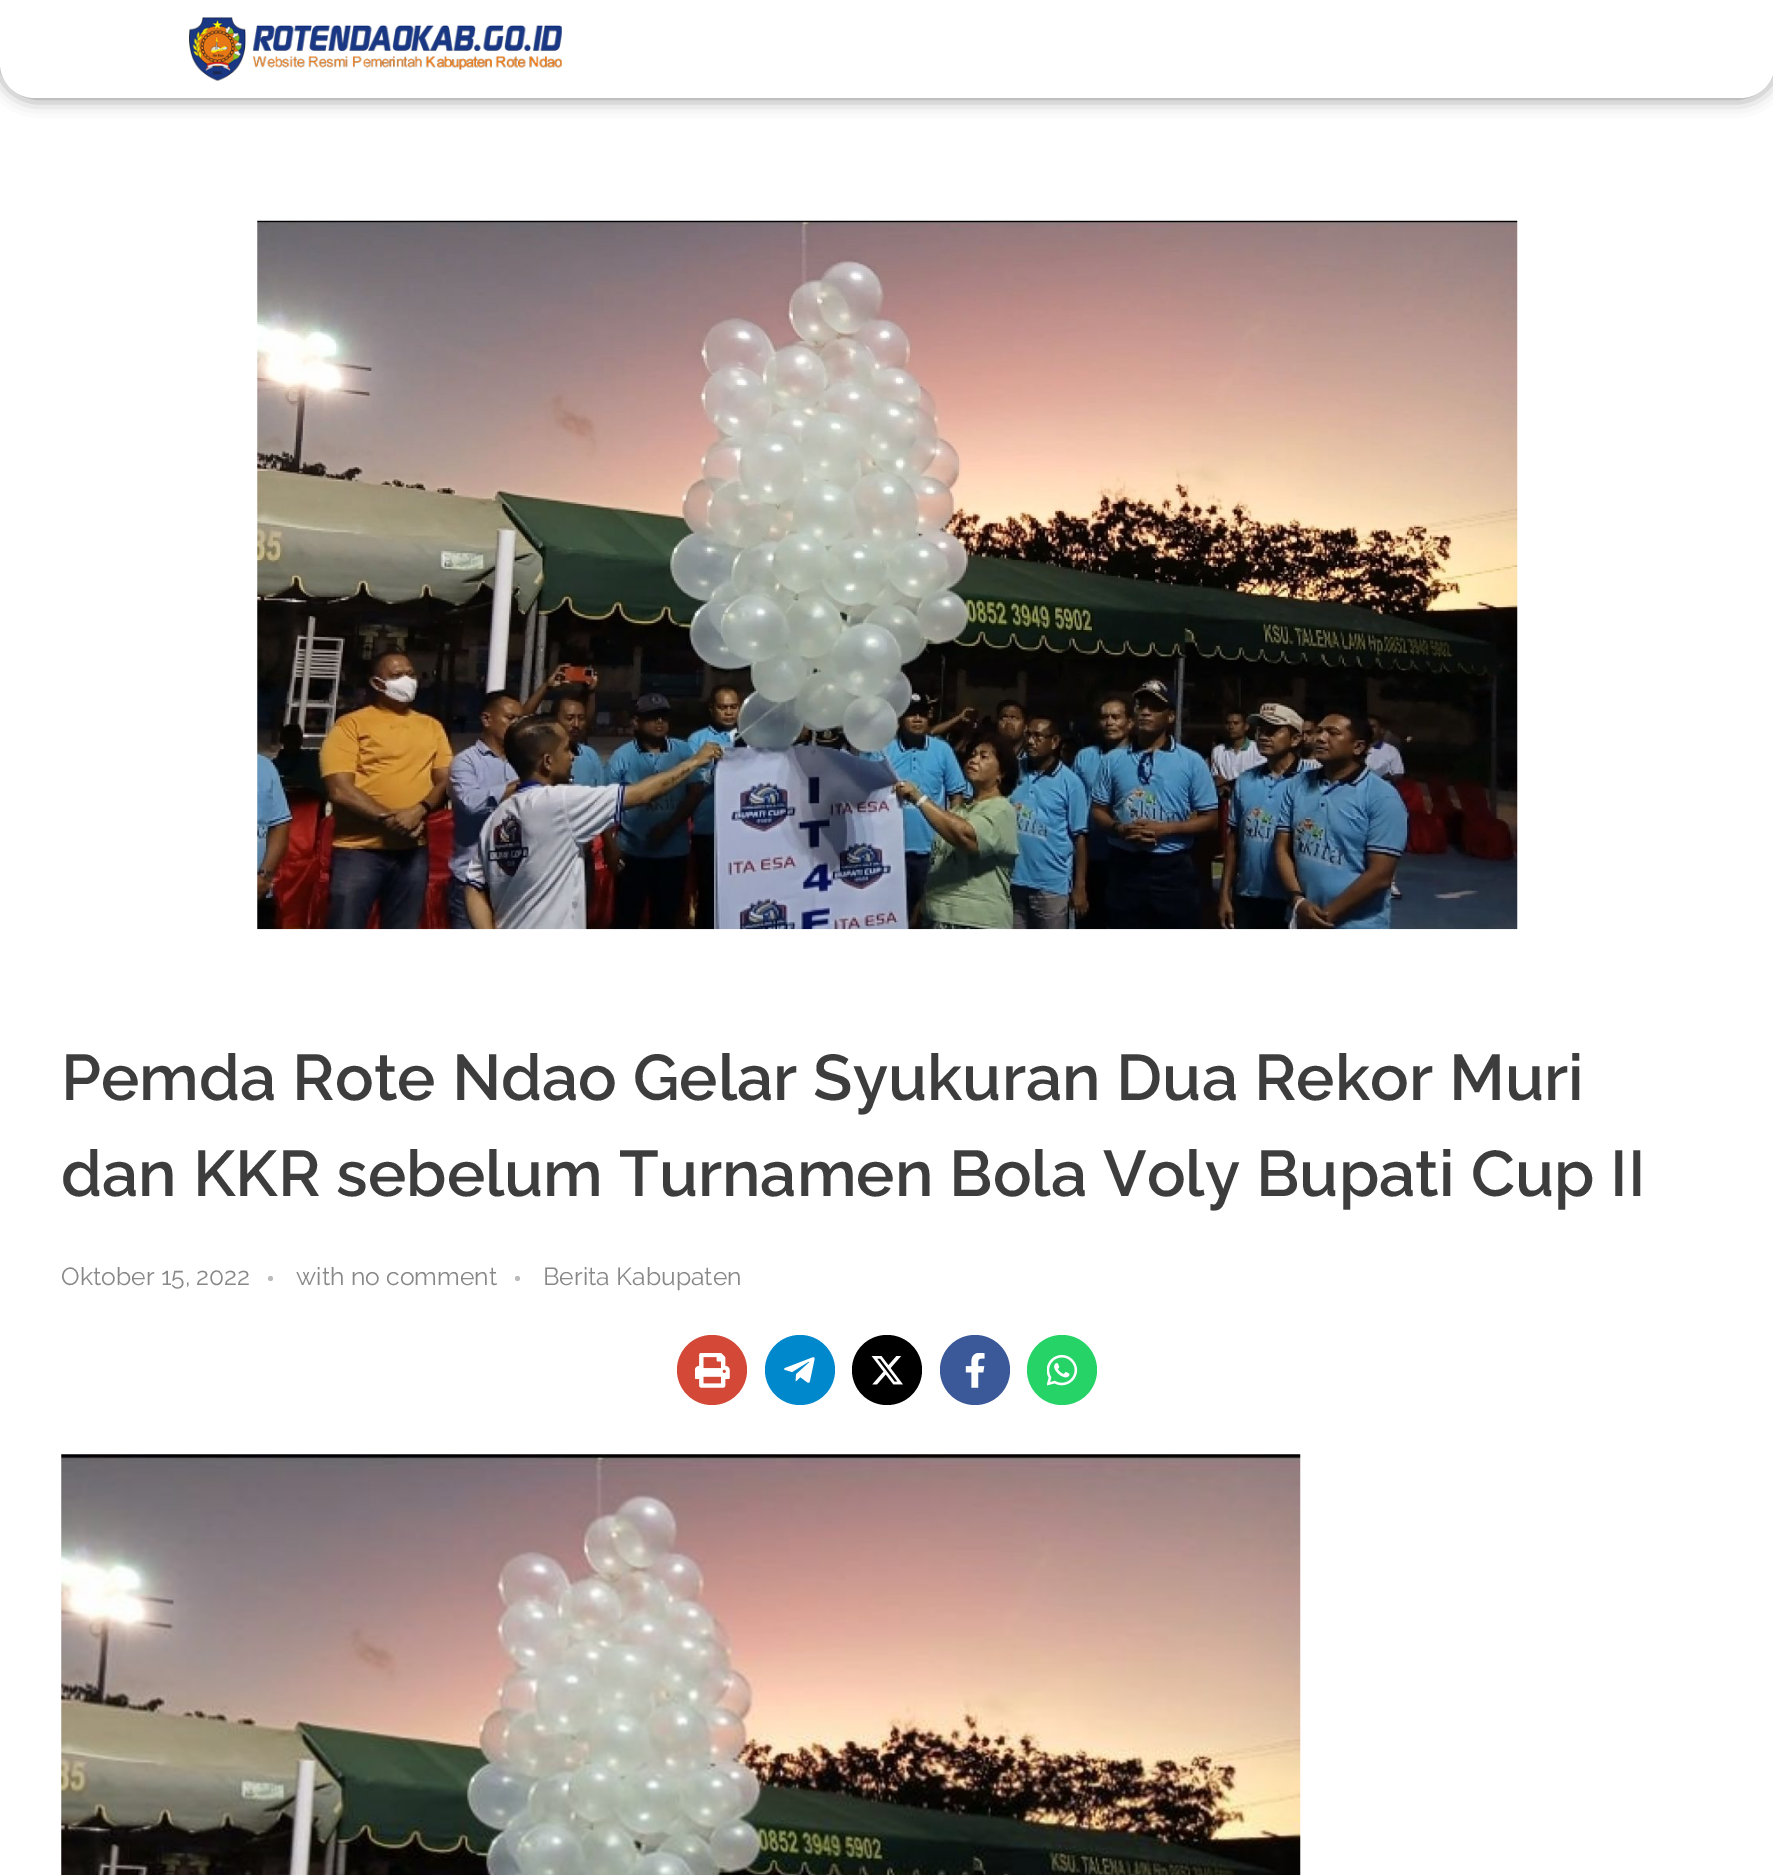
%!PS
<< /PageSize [1773 1875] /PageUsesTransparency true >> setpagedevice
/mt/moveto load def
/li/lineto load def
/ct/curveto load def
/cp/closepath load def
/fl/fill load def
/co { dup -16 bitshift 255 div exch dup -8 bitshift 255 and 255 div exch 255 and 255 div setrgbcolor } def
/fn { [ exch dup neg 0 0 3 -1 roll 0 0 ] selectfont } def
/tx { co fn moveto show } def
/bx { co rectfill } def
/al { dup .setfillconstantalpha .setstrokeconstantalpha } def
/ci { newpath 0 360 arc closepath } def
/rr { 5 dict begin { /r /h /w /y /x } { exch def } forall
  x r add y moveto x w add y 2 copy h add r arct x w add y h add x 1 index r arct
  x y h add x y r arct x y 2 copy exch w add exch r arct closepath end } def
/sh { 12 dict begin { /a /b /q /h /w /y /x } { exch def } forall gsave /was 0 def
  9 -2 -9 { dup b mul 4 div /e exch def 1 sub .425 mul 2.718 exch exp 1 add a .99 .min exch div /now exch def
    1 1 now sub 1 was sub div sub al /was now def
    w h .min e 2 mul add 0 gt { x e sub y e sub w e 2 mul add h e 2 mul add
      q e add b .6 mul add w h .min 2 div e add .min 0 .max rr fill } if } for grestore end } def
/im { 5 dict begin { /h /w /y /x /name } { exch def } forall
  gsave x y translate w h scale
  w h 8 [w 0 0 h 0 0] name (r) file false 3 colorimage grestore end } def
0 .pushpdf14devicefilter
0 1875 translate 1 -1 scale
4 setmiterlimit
0 0 1773 1875 16#FFFFFF bx
16#000000 co
0 0 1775 98 35 9 .5 sh
16#FFFFFF co
0 0 mt 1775 0 li 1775 63 li 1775 82.5 1759.5 98 1740 98 ct 35 98 li 15.5 98 0 82.5 0 63 ct cp fl
(media/1.raw) 189 17 373 64 im
(media/2.raw) 257 220 1261 710 im
16#BBBBBB co
270.5 1278.5 2.5 ci fl
517.5 1278.5 2.5 ci fl
16#D34836 co
712 1370 35 ci fl
(media/3.raw) 695 1353 35 35 im
16#0088CC co
800 1370 35 ci fl
(media/4.raw) 784 1357 31 26 im
16#000000 co
887 1370 35 ci fl
(media/5.raw) 871 1356 32 29 im
16#3B5998 co
975 1370 35 ci fl
(media/6.raw) 965 1353 20 35 im
16#25D366 co
1062 1370 35 ci fl
(media/7.raw) 1047 1354 31 32 im
(media/8.raw) 61 1454 1240 421 im
(Pemda Rote Ndao Gelar Syukuran Dua Rekor Muri) 61 1100 /Raleway-SemiBold 64.4 16#3D3D3D tx
(dan KKR sebelum Turnamen Bola Voly Bupati Cup II) 61 1196 /Raleway-SemiBold 64.4 16#3D3D3D tx
(Oktober 15, 2022) 61 1285 /Raleway-Regular 24.75 16#888888 tx
(with no comment) 296 1285 /Raleway-Regular 24.75 16#888888 tx
(Berita Kabupaten) 543 1285 /Raleway-Regular 24.75 16#888888 tx
.poppdf14devicefilter showpage
